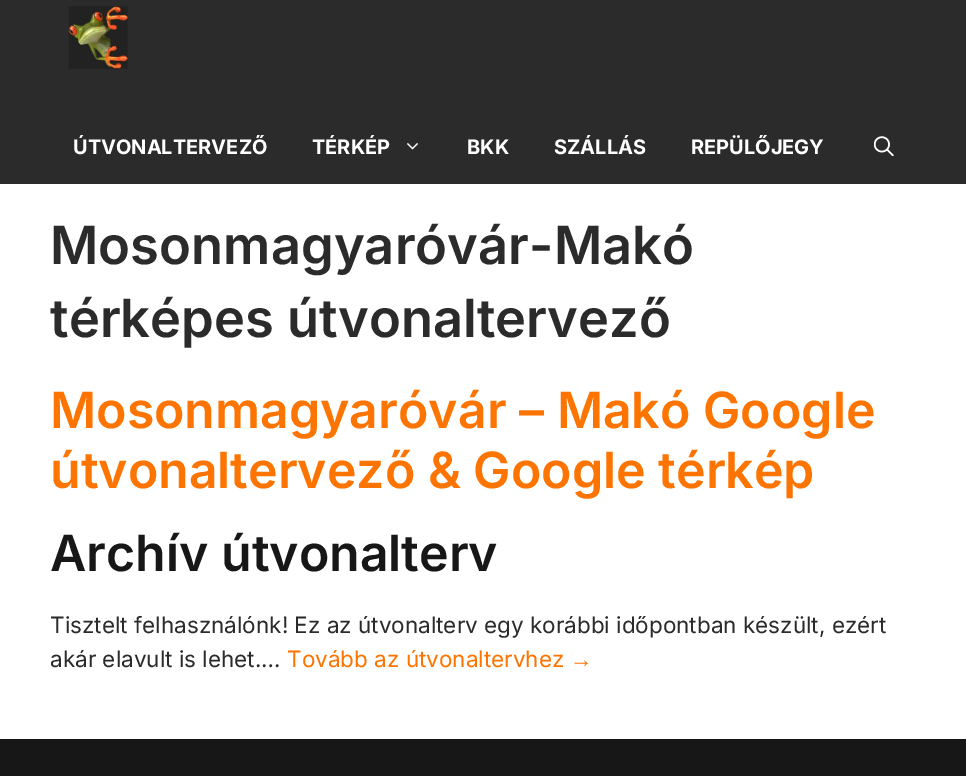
%!PS
<< /PageSize [966 776] >> setpagedevice
/co { dup -16 bitshift 255 div exch dup -8 bitshift 255 and 255 div exch 255 and 255 div setrgbcolor } def
/fn { [ exch dup neg 0 0 3 -1 roll 0 0 ] selectfont } def
/tx { co fn moveto show } def
/bx { co rectfill } def
/im { 5 dict begin { /h /w /y /x /name } { exch def } forall
  gsave x y translate w h scale
  w h 8 [w 0 0 h 0 0] name (r) file false 3 colorimage grestore end } def
0 776 translate 1 -1 scale
4 setmiterlimit
0 0 966 776 16#FFFFFF bx
0 0 966 184 16#2B2B2B bx
(media/1.raw) 68 6 60 63 im
(media/2.raw) 407 143 11 7 im
(media/3.raw) 874 136 20 20 im
0 739 966 37 16#171717 bx
(ÚTVONALTERVEZŐ) 73 154 /Inter-Bold 20 16#FFFFFF tx
(TÉRKÉP) 312 154 /Inter-Bold 20 16#FFFFFF tx
(BKK) 467 154 /Inter-Bold 20 16#FFFFFF tx
(SZÁLLÁS) 554 154 /Inter-Bold 20 16#FFFFFF tx
(REPÜLŐJEGY) 691 154 /Inter-Bold 20 16#FFFFFF tx
(Mosonmagyaróvár-Makó) 50 264 /Inter-SemiBold 52.5 16#2B2B2B tx
(térképes útvonaltervező) 50 337 /Inter-SemiBold 52.5 16#2B2B2B tx
(Mosonmagyaróvár – Makó Google) 50 428 /Inter-SemiBold 50 16#FD7401 tx
(útvonaltervező & Google térkép) 50 488 /Inter-SemiBold 50 16#FD7401 tx
(Archív útvonalterv) 50 571 /Inter-SemiBold 50 16#171717 tx
(Tisztelt felhasználónk! Ez az útvonalterv egy korábbi időpontban készült, ezért) 50 633 /Inter-Regular 22.5 16#2B2B2B tx
(akár elavult is lehet.…) 50 667 /Inter-Regular 22.5 16#2B2B2B tx
(Tovább az útvonaltervhez) 287 667 /Inter-Regular 22.5 16#FD7401 tx
(→) 570 667 /LiberationSans-Regular 22.5 16#FD7401 tx
showpage
